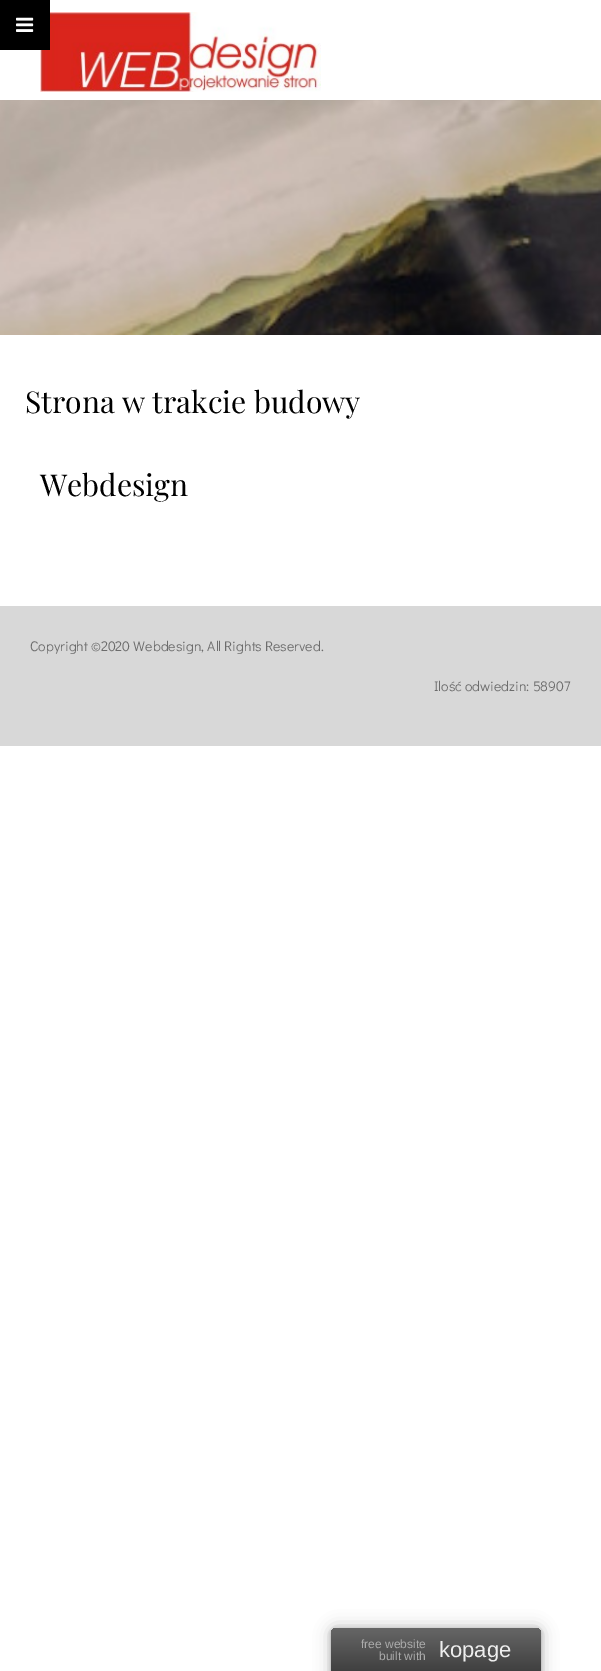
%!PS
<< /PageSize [601 1671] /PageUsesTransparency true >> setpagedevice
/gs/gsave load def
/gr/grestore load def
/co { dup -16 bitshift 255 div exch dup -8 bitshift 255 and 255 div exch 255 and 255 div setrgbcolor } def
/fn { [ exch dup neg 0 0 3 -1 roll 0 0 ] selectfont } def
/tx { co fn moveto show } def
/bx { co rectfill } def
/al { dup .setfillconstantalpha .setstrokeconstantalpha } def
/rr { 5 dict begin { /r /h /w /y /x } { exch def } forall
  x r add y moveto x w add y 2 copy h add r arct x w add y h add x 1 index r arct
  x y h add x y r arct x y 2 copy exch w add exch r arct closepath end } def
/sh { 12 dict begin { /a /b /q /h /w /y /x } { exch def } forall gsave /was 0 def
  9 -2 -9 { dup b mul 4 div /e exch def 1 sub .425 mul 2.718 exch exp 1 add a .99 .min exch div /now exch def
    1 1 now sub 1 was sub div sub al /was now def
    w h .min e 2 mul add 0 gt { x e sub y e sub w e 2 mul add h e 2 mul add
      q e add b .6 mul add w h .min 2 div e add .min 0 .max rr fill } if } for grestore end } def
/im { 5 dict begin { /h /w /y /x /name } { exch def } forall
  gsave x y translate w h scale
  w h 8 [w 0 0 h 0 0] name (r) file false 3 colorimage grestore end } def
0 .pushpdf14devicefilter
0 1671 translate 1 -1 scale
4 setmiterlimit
0 0 601 1671 16#FFFFFF bx
(media/2.raw) 40 12 281 80 im
0 0 50 50 16#000000 bx
(media/1.raw) 16 17 18 15 im
(media/3.raw) 0 100 601 235 im
0 606 601 140 16#D8D8D8 bx
16#000000 co
329 1626 214 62 7 7.5 .2 sh
331 1629 210 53 5 2 .3 sh
gs 331 1628 210 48 5 rr clip newpath
<< /ShadingType 2 /ColorSpace /DeviceRGB /Coords [436 1628 436 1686] /Extend [true true] /Function << /FunctionType 2 /Domain [0 1] /C0 [.4 .4 .4] /C1 [.2 .2 .2] /N 1 >> >> shfill gr
(Strona w trakcie budowy) 25 413 /PlayfairDisplay-Regular 30 16#000000 tx
(Webdesign) 40 496 /PlayfairDisplay-Regular 30 16#000000 tx
(Copyright ©2020 Webdesign, All Rights Reserved.) 30 651 /DidactGothic-Regular 14 16#6C6C6C tx
(Ilość odwiedzin: 58907) 434 691 /DidactGothic-Regular 14 16#6C6C6C tx
(free website) 361 1648 /LiberationSans-Regular 12 16#ABABAB tx
(built with) 379 1660 /LiberationSans-Regular 12 16#ABABAB tx
(kopage) 439 1657 /LiberationSans-Regular 22 16#EEEEEE tx
.poppdf14devicefilter showpage
